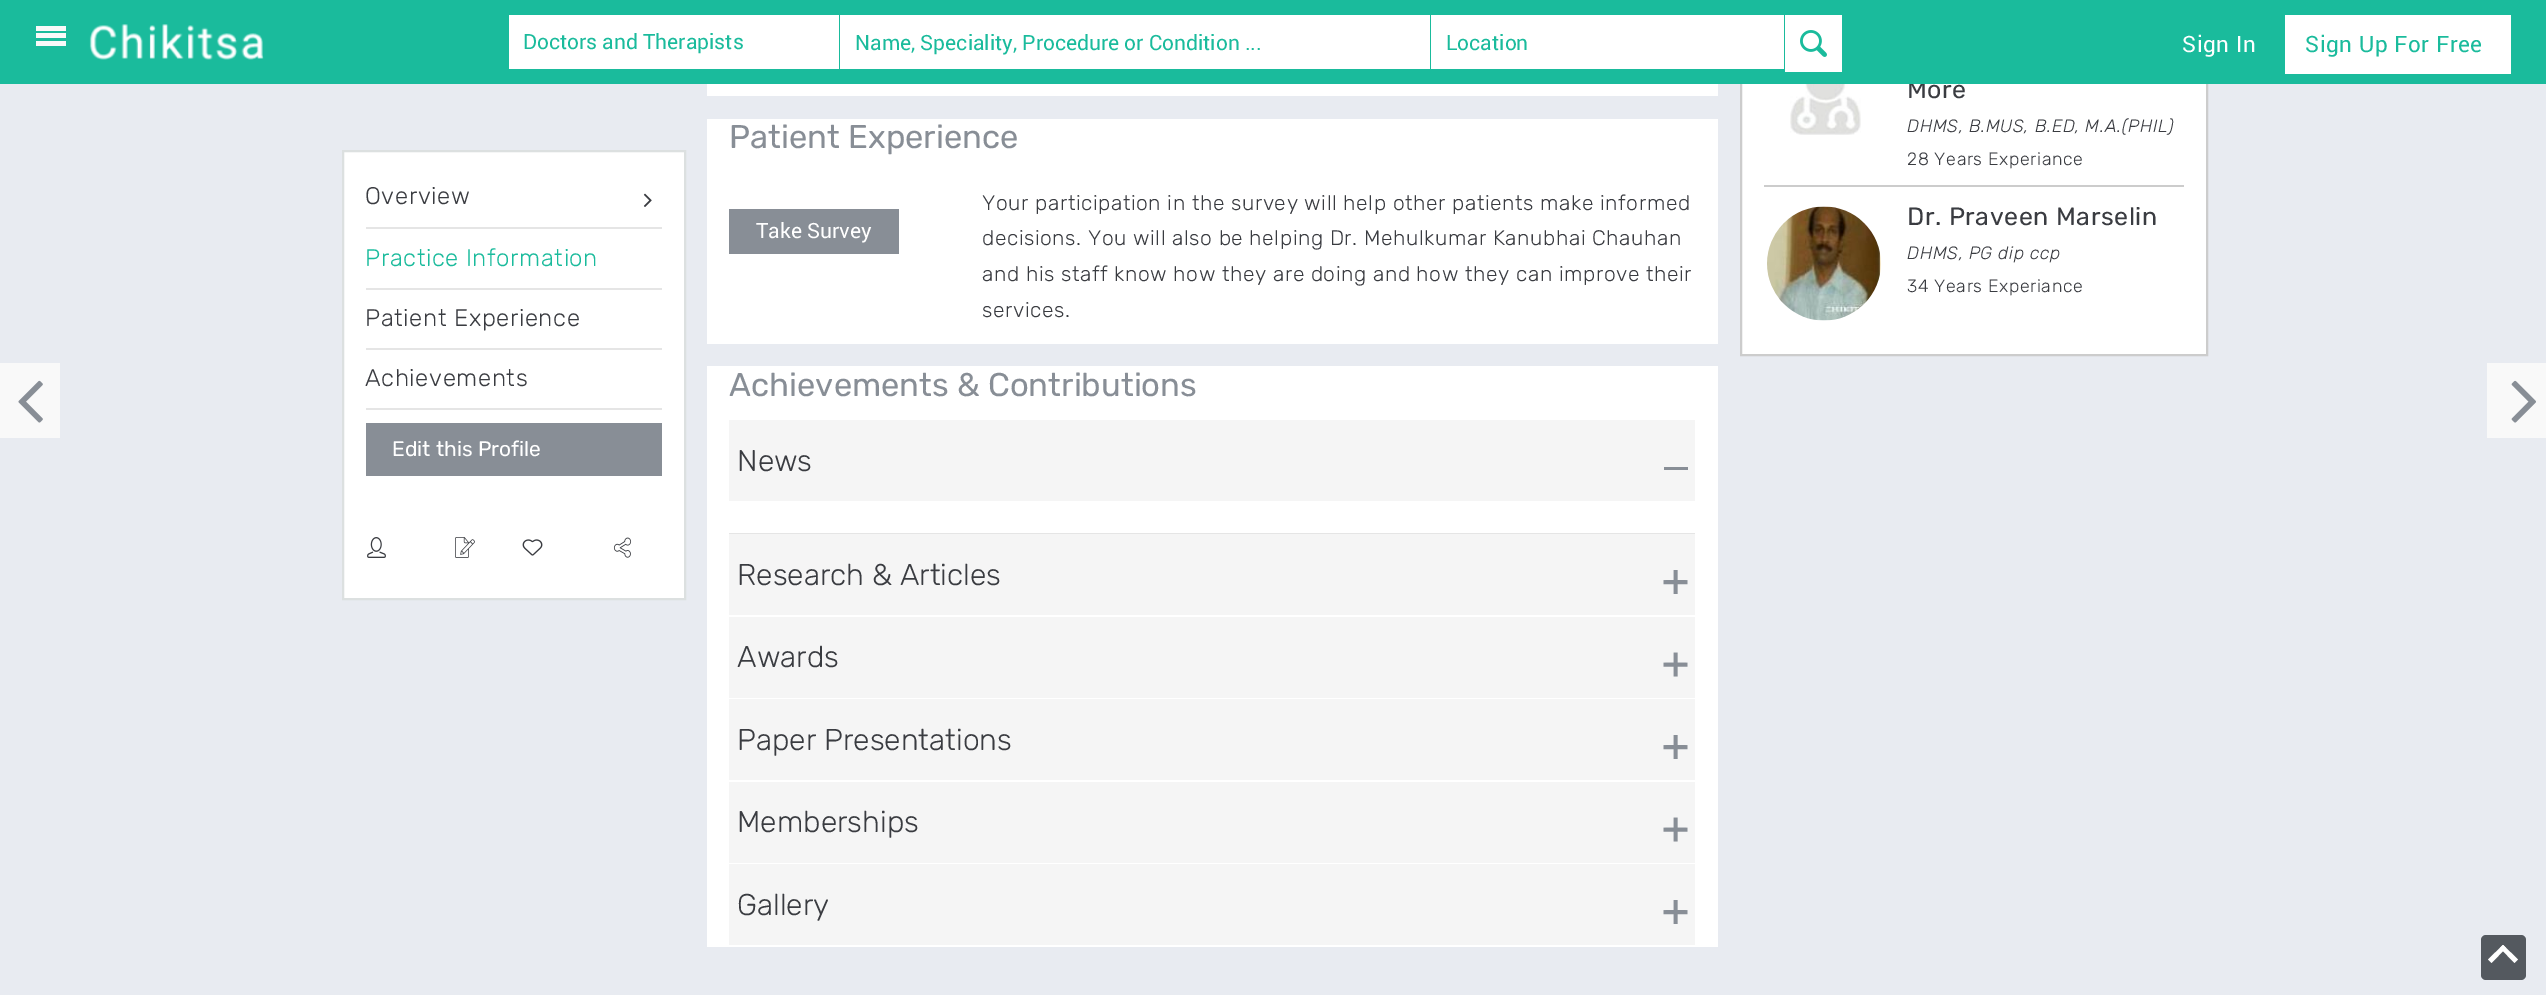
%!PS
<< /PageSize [2546 995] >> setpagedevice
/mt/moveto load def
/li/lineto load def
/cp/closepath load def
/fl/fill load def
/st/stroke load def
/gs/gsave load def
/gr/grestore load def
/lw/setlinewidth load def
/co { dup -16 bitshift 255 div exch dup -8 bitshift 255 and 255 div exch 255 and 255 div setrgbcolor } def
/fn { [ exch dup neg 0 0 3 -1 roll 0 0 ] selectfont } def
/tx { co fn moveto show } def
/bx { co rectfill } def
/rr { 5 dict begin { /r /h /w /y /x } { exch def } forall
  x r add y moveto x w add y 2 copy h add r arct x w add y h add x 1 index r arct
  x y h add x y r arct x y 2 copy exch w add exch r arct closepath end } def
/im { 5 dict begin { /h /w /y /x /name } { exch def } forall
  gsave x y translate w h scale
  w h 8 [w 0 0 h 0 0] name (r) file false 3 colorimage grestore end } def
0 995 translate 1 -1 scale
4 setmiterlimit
0 0 2546 995 16#E8EBF1 bx
0 363 60 75 16#F9F9F9 bx
(media/3.raw) 18 380 25 43 im
16#FFFFFF co
343 151 mt 685 151 li 685 599 li 343 599 li cp gs fl gr
16#DCE0E0 co
2 lw
st
366 227 296 2 16#E5E5E5 bx
(media/4.raw) 643 193 9 14 im
366 288 296 2 16#E5E5E5 bx
366 348 296 2 16#E5E5E5 bx
366 408 296 2 16#E5E5E5 bx
366 423 296 53 16#888E96 bx
(media/5.raw) 367 537 19 21 im
(media/6.raw) 455 537 20 21 im
(media/7.raw) 522 539 21 17 im
(media/8.raw) 613 537 19 21 im
707 84 1011 12 16#FFFFFF bx
707 119 1011 225 16#FFFFFF bx
729 209 170 45 16#888E96 bx
707 366 1011 581 16#FFFFFF bx
729 420 966 81 16#F5F5F5 bx
1664 467 24 3 16#888E96 bx
729 533 966 1 16#E5E5E5 bx
729 534 966 81 16#F5F5F5 bx
(media/9.raw) 1663 570 25 24 im
729 617 966 81 16#F5F5F5 bx
(media/10.raw) 1663 652 25 25 im
729 699 966 81 16#F5F5F5 bx
(media/9.raw) 1663 735 25 24 im
729 782 966 81 16#F5F5F5 bx
(media/10.raw) 1663 817 25 25 im
729 864 966 81 16#F5F5F5 bx
(media/9.raw) 1663 900 25 24 im
1742 84 464 270 16#FFFFFF bx
16#CCCCCC co
1741 -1 466 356 rectstroke
1764 185 420 2 16#CCCCCC bx
(media/11.raw) 1790 84 71 51 im
(media/12.raw) 1767 206 114 115 im
2487 363 59 75 16#F9F9F9 bx
(media/13.raw) 2511 380 25 43 im
16#54595F co
2481 935 45 45 5 rr fl
16#FFFFFF co
2488 959.5 mt 2503 945 li 2506 948 li 2491.5 963 li cp fl
2500 948 mt 2503 945 li 2518 959.5 li 2514.5 963 li cp fl
/Rubik-Light 24 fn
16#3A3C41 co
365 204 mt .6 0 (Overview) ashow
16#1ABB9C co
365 266 mt .6 0 (Practice Information) ashow
16#3A3C41 co
365 326 mt .6 0 (Patient Experience) ashow
365 386 mt .6 0 (Achievements) ashow
(Edit this Profile) 392 456 /Rubik-Regular 21 16#FFFFFF tx
(Patient Experience) 729 148 /Rubik-Regular 32.8 16#888E96 tx
(Take Survey) 756 238 /roboto-Regular 21 16#FFFFFF tx
/Rubik-Light 21 fn
16#3A3C41 co
982 210 mt .6 0 (Your participation in the survey will help other patients make informed) ashow
982 245 mt .6 0 (decisions. You will also be helping Dr. Mehulkumar Kanubhai Chauhan) ashow
982 281 mt .6 0 (and his staff know how they are doing and how they can improve their) ashow
982 317 mt .6 0 (services.) ashow
(Achievements & Contributions) 729 396 /Rubik-Regular 32.8 16#888E96 tx
(News) 737 471 /Rubik-Light 30 16#3A3C41 tx
(Research & Articles) 737 585 /Rubik-Light 30 16#3A3C41 tx
(Awards) 737 667 /Rubik-Light 30 16#3A3C41 tx
(Paper Presentations) 737 750 /Rubik-Light 30 16#3A3C41 tx
(Memberships) 737 832 /Rubik-Light 30 16#3A3C41 tx
(Gallery) 737 915 /Rubik-Light 30 16#3A3C41 tx
/Rubik-Regular 25 fn
1907 98 mt .6 0 (More) ashow
0 0 2546 84 16#1ABB9C bx
(media/1.raw) 89 24 175 36 im
2285 15 226 59 16#FFFFFF bx
/roboto-Regular 22.5 fn
16#1ABB9C co
2305 52 mt .6 0 (Sign Up For Free) ashow
16#FFFFFF co
2182 52 mt .6 0 (Sign In) ashow
1785 15 57 57 16#FFFFFF bx
(media/2.raw) 1800 30 27 27 im
1431 15 353 54 16#FFFFFF bx
(Location) 1446 50 /roboto-Regular 21 16#1ABB9C tx
840 15 590 54 16#FFFFFF bx
(Name, Speciality, Procedure or Condition ...) 855 50 /roboto-Regular 21 16#1ABB9C tx
509 15 330 54 16#FFFFFF bx
(Doctors and Therapists) 523 49 /roboto-Regular 21 16#1ABB9C tx
36 41 30 5 16#F9F9F9 bx
36 33 30 5 16#F9F9F9 bx
36 26 30 5 16#F9F9F9 bx
/Rubik-LightItalic 17.8 fn
16#3A3C41 co
1907 132 mt .6 0 (DHMS, B.MUS, B.ED, M.A.\(PHIL\)) ashow
/Rubik-Light 17.8 fn
1907 165 mt .6 0 (28 Years Experiance) ashow
/Rubik-Regular 25 fn
1907 225 mt .6 0 (Dr. Praveen Marselin) ashow
/Rubik-LightItalic 17.8 fn
1907 259 mt .6 0 (DHMS, PG dip ccp) ashow
/Rubik-Light 17.8 fn
1907 292 mt .6 0 (34 Years Experiance) ashow
showpage
